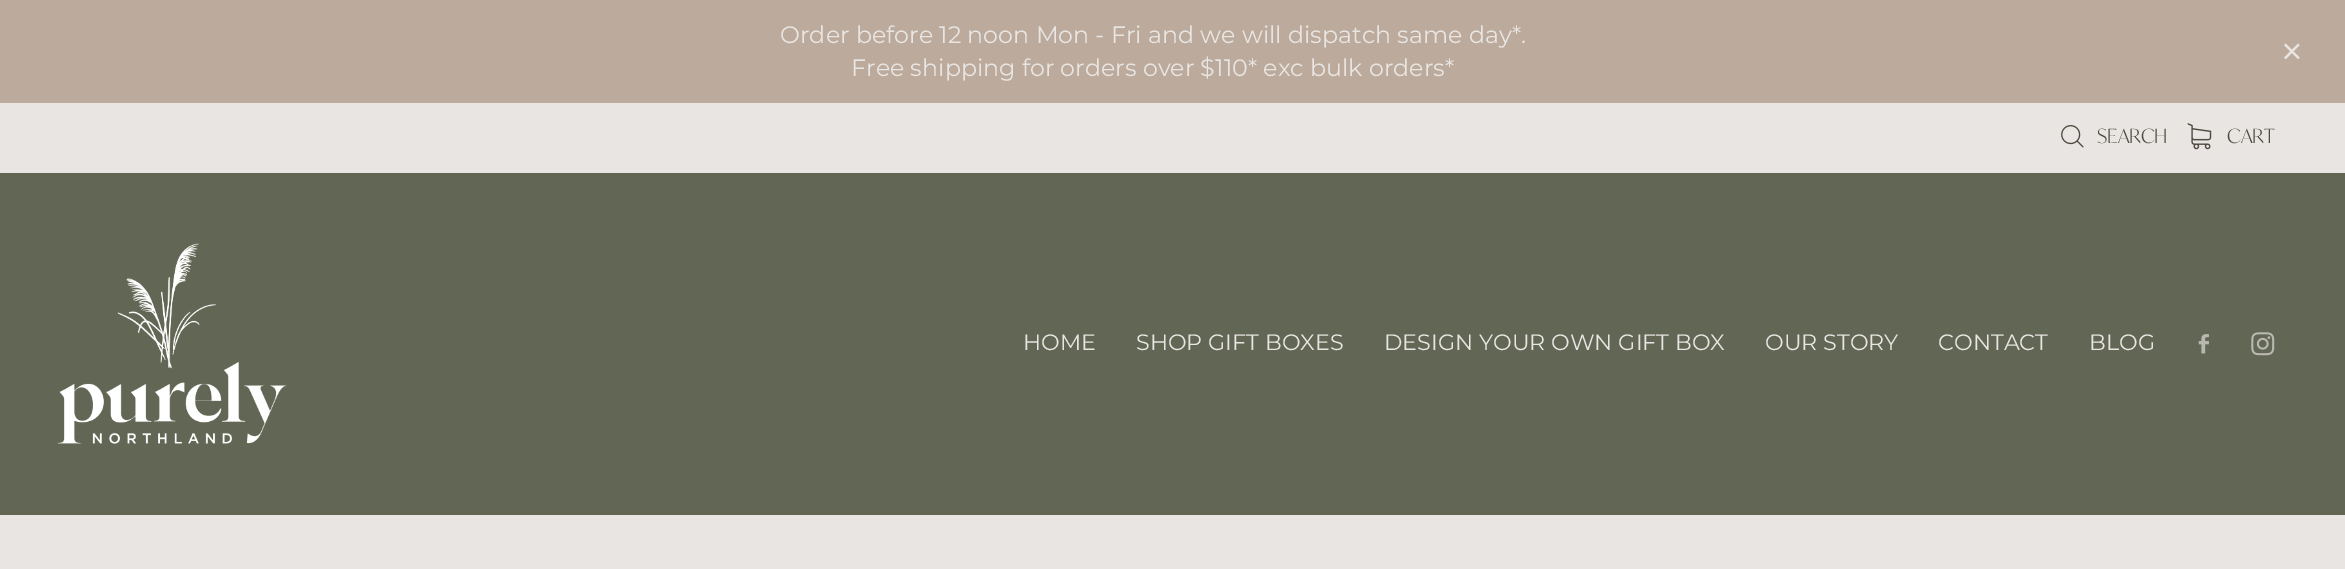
%!PS
<< /PageSize [2345 569] >> setpagedevice
/co { dup -16 bitshift 255 div exch dup -8 bitshift 255 and 255 div exch 255 and 255 div setrgbcolor } def
/fn { [ exch dup neg 0 0 3 -1 roll 0 0 ] selectfont } def
/tx { co fn moveto show } def
/bx { co rectfill } def
/im { 5 dict begin { /h /w /y /x /name } { exch def } forall
  gsave x y translate w h scale
  w h 8 [w 0 0 h 0 0] name (r) file false 3 colorimage grestore end } def
0 569 translate 1 -1 scale
4 setmiterlimit
0 0 2345 569 16#E8E5E2 bx
0 0 2345 103 16#BCAB9C bx
(media/1.raw) 2284 43 16 17 im
(media/2.raw) 2061 125 23 23 im
(media/3.raw) 2187 123 25 27 im
0 173 2345 342 16#626654 bx
(media/4.raw) 57 243 230 201 im
(media/5.raw) 2198 334 11 20 im
(media/6.raw) 2251 332 24 24 im
(Order before 12 noon Mon - Fri and we will dispatch same day*.) 780 43 /Montserrat-Regular 23.75 16#E8E5E2 tx
(Free shipping for orders over $110* exc bulk orders*) 851 76 /Montserrat-Regular 23.75 16#E8E5E2 tx
(SEARCH) 2097 143 /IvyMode-Light 19.5 16#4E4A41 tx
(CART) 2227 143 /IvyMode-Light 19.5 16#4E4A41 tx
(HOME) 1023 350 /Montserrat-Regular 22.25 16#E8E5E2 tx
(SHOP GIFT BOXES) 1136 350 /Montserrat-Regular 22.25 16#E8E5E2 tx
(DESIGN YOUR OWN GIFT BOX) 1384 350 /Montserrat-Regular 22.25 16#E8E5E2 tx
(OUR STORY) 1765 350 /Montserrat-Regular 22.25 16#E8E5E2 tx
(CONTACT) 1938 350 /Montserrat-Regular 22.25 16#E8E5E2 tx
(BLOG) 2089 350 /Montserrat-Regular 22.25 16#E8E5E2 tx
showpage
